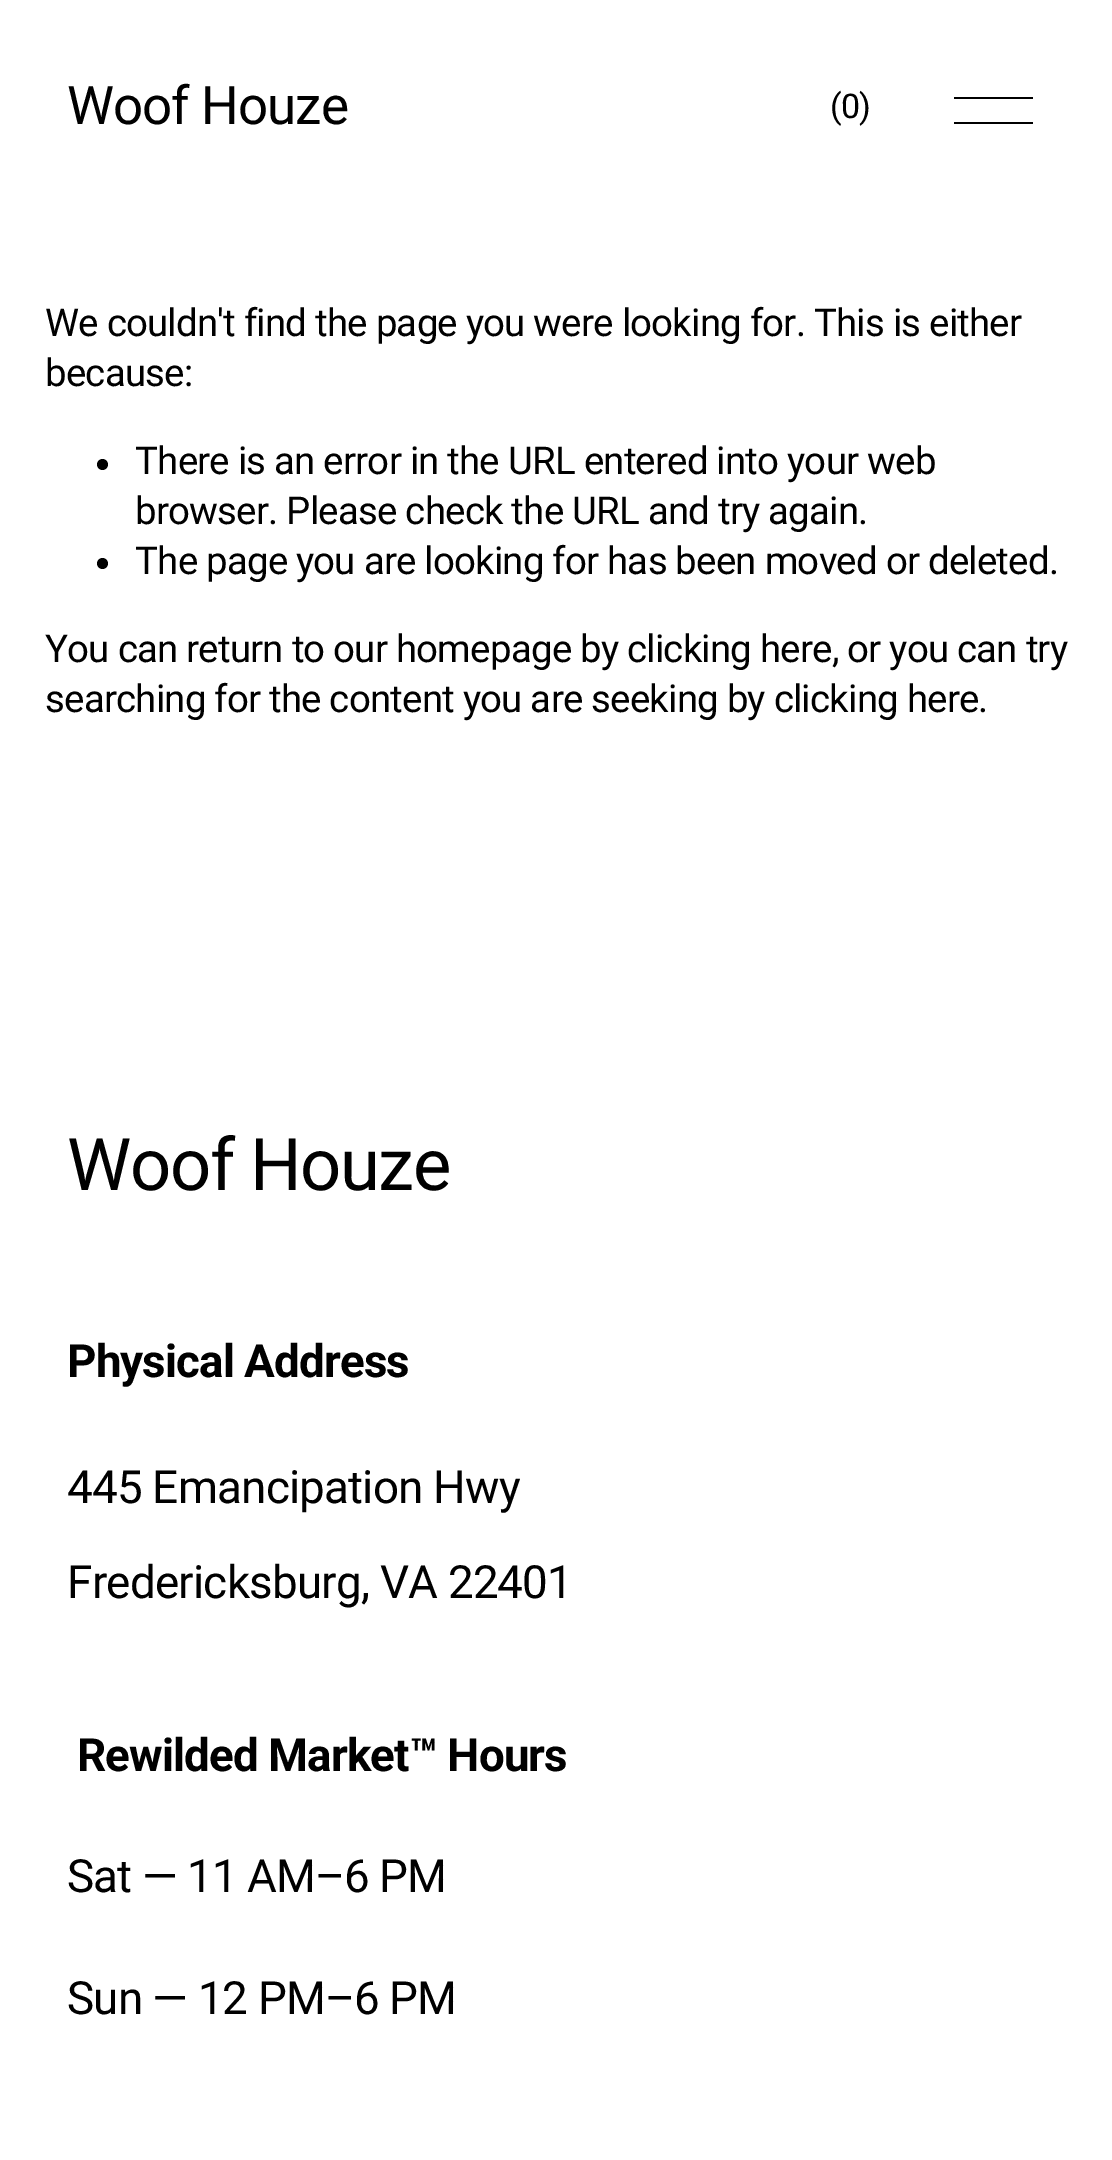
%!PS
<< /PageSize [1112 2160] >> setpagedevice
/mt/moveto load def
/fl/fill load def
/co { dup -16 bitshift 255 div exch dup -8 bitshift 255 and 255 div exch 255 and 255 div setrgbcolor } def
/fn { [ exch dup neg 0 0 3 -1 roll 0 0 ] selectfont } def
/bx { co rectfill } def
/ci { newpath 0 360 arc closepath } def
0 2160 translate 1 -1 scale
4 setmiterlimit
0 0 1112 2160 16#FFFFFF bx
954 97 79 2 16#000000 bx
954 122 79 2 16#000000 bx
102.5 464.5 5.5 ci fl
102.5 563.5 5.5 ci fl
/Roboto-Regular 53 fn
67 124 mt -1 0 (Woof Houze) ashow
/Roboto-Regular 34 fn
830 118 mt -1 0 (\(0\)) ashow
/Roboto-Regular 38.4 fn
45 336 mt -.77 0 (We couldn't find the page you were looking for. This is either) ashow
45 386 mt -.77 0 (because:) ashow
135 474 mt -.77 0 (There is an error in the URL entered into your web) ashow
135 524 mt -.77 0 (browser. Please check the URL and try again.) ashow
135 574 mt -.77 0 (The page you are looking for has been moved or deleted.) ashow
45 662 mt -.77 0 (You can return to our homepage by clicking here, or you can try) ashow
45 712 mt -.77 0 (searching for the content you are seeking by clicking here.) ashow
/Roboto-Regular 72.5 fn
67 1190 mt -1.5 0 (Woof Houze) ashow
/Roboto-Bold 45.75 fn
67 1377 mt -.9 0 (Physical Address) ashow
/Roboto-Regular 45.75 fn
67 1503 mt -.77 0 (445 Emancipation Hwy) ashow
67 1598 mt -.77 0 (Fredericksburg, VA 22401) ashow
/Roboto-Bold 45.75 fn
77 1771 mt -.9 0 (Rewilded Market™ Hours) ashow
/Roboto-Regular 45.75 fn
67 1892 mt -.9 0 (Sat — 11 AM–6 PM) ashow
67 2014 mt -.9 0 (Sun — 12 PM–6 PM) ashow
showpage
